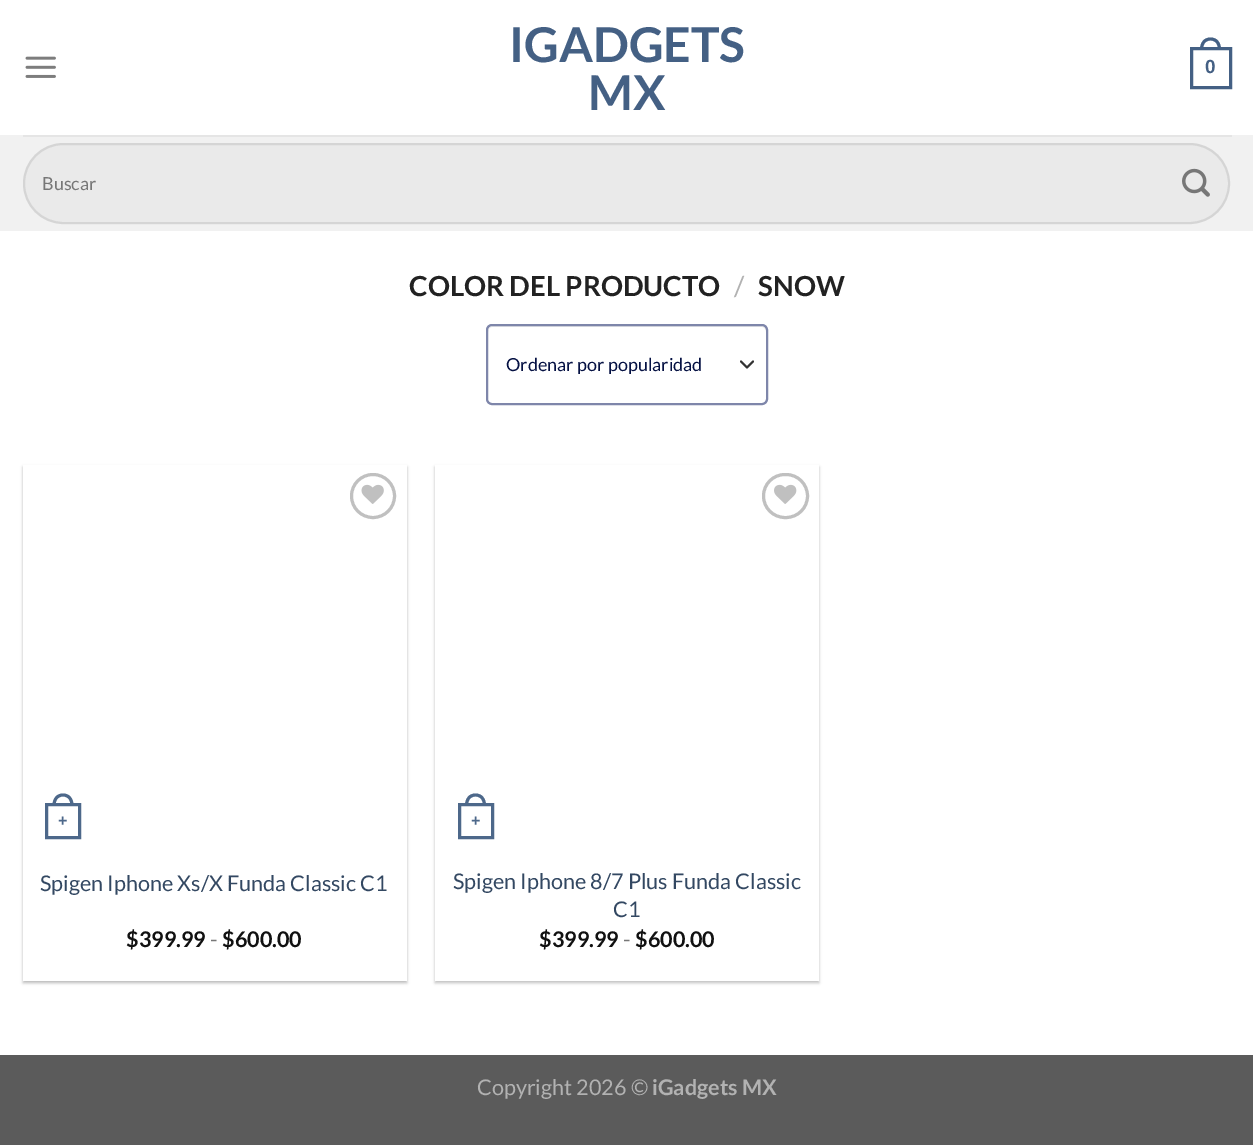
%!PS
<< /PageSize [1253 1145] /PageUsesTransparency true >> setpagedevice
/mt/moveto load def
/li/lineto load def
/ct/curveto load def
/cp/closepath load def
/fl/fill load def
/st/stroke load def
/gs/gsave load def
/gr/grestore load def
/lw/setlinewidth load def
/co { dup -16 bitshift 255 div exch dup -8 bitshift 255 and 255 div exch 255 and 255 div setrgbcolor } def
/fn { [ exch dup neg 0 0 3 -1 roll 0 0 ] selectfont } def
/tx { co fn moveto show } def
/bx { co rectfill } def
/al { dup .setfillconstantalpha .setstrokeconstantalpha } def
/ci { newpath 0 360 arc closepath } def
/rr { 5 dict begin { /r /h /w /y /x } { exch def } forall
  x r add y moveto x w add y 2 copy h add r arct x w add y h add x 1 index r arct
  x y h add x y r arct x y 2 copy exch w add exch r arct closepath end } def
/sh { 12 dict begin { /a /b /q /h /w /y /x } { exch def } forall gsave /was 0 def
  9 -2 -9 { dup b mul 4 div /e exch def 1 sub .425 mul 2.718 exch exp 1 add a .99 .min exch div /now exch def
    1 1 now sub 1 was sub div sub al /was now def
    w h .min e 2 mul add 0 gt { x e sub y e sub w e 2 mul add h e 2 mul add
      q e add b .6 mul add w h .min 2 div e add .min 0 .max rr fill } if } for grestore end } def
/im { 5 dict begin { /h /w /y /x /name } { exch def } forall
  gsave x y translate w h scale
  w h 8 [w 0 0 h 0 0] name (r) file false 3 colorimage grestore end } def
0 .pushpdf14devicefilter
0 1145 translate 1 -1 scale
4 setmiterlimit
0 0 1253 1145 16#5B5B5B bx
0 0 1253 1055 16#FFFFFF bx
(media/1.raw) 25 56 31 22 im
16#446084 co
3 lw
1191.5 48.5 39 39 rectstroke
1210.5 37.5 mt 1217.5 37.5 1221 43 1221 49.5 ct 1200 49.5 li 1200 43 1203.5 37.5 1210.5 37.5 ct cp 1210.5 40.5 mt 1216 40.5 1218 45 1218 49.5 ct 1203 49.5 li 1203 45 1205 40.5 1210.5 40.5 ct cp eofill
0 135 1253 96 16#F1F1F1 bx
23 135 1209 2 16#E5E5E5 bx
16#EAEAEA co
23 143 1207 81 40.5 rr fl
0.09 al
16#000000 co
2 lw
24 144 1205 79 39.5 rr st
1 al
(media/2.raw) 1182 168 28 29 im
16#333333 co
1 setlinecap
1 setlinejoin
741 361.5 mt 747 367.5 li 753 361.5 li st
16#ECECEC co
492 327 mt 762 327 li 764 327 766 329 766 332 ct 766 400 li 765 403 li 766 402 767 400 767 399 ct 767 331 li 767 328 765 326 762 326 ct 493 326 li 490 326 488 328 488 331 ct 488 332 li 488 329 490 327 492 327 ct cp fl
16#7E86AA co
0 setlinecap
0 setlinejoin
487 325 280 79 5 rr st
16#000000 co
23 467 384 516 0 1.5 .24 sh
26 470 378 510 0 2 .12 sh
23 465 384 516 16#FFFFFF bx
16#C0C0C0 co
3 lw
373 496 21.5 ci st
(media/3.raw) 361 484 23 20 im
16#4D688A co
46.5 804.5 33 33 rectstroke
63 793.5 mt 70 793.5 73.5 799 73.5 805.5 ct 52.5 805.5 li 52.5 799 56 793.5 63 793.5 ct cp 63 796.5 mt 68.5 796.5 70.5 801 70.5 805.5 ct 55.5 805.5 li 55.5 801 57.5 796.5 63 796.5 ct cp eofill
gs
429 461 mt 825 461 li 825 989 li 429 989 li cp 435 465 mt 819 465 li 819 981 li 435 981 li cp eoclip newpath
16#000000 co
435 467 384 516 0 1.5 .24 sh
gr
16#C0C0C0 co
763.5 474.5 44 43 21.5 rr st
(media/4.raw) 774 484 23 20 im
16#4D688A co
459.5 804.5 33 33 rectstroke
475.5 793.5 mt 482.5 793.5 486 799 486 805.5 ct 465 805.5 li 465 799 468.5 793.5 475.5 793.5 ct cp 475.5 796.5 mt 481 796.5 483 801 483 805.5 ct 468 805.5 li 468 801 470 796.5 475.5 796.5 ct cp eofill
(IGADGETS) 509 62 /Lato-Bold 48 16#446084 tx
(MX) 588 110 /Lato-Bold 48 16#446084 tx
(0) 1205 73 /LiberationSans-Bold 19 16#446084 tx
(Buscar) 42 190 /Lato-Regular 18 16#777777 tx
(COLOR DEL PRODUCTO) 409 296 /Lato-Bold 27.6 16#222222 tx
(/) 734 296 /Lato-Regular 27.6 16#B2B2B2 tx
(SNOW) 758 296 /Lato-Bold 27.6 16#222222 tx
(Ordenar por popularidad) 506 371 /Lato-Regular 18 16#051143 tx
(+) 58 826 /LiberationSans-Bold 16 16#4D688A tx
(Spigen Iphone Xs/X Funda Classic C1) 40 891 /Lato-Regular 21.6 16#334862 tx
($399.99) 126 947 /Lato-Bold 21.6 16#111111 tx
(-) 210 947 /Lato-Regular 21.6 16#777777 tx
($600.00) 222 947 /Lato-Bold 21.6 16#111111 tx
(+) 471 826 /LiberationSans-Bold 16 16#4D688A tx
(Spigen Iphone 8/7 Plus Funda Classic) 453 889 /Lato-Regular 21.6 16#334862 tx
(C1) 613 917 /Lato-Regular 21.6 16#334862 tx
($399.99) 539 947 /Lato-Bold 21.6 16#111111 tx
(-) 623 947 /Lato-Regular 21.6 16#777777 tx
($600.00) 635 947 /Lato-Bold 21.6 16#111111 tx
(Copyright 2026 ©) 477 1095 /Lato-Regular 21.6 16#B2B2B2 tx
(iGadgets MX) 652 1095 /Lato-Bold 21.6 16#B2B2B2 tx
.poppdf14devicefilter showpage
